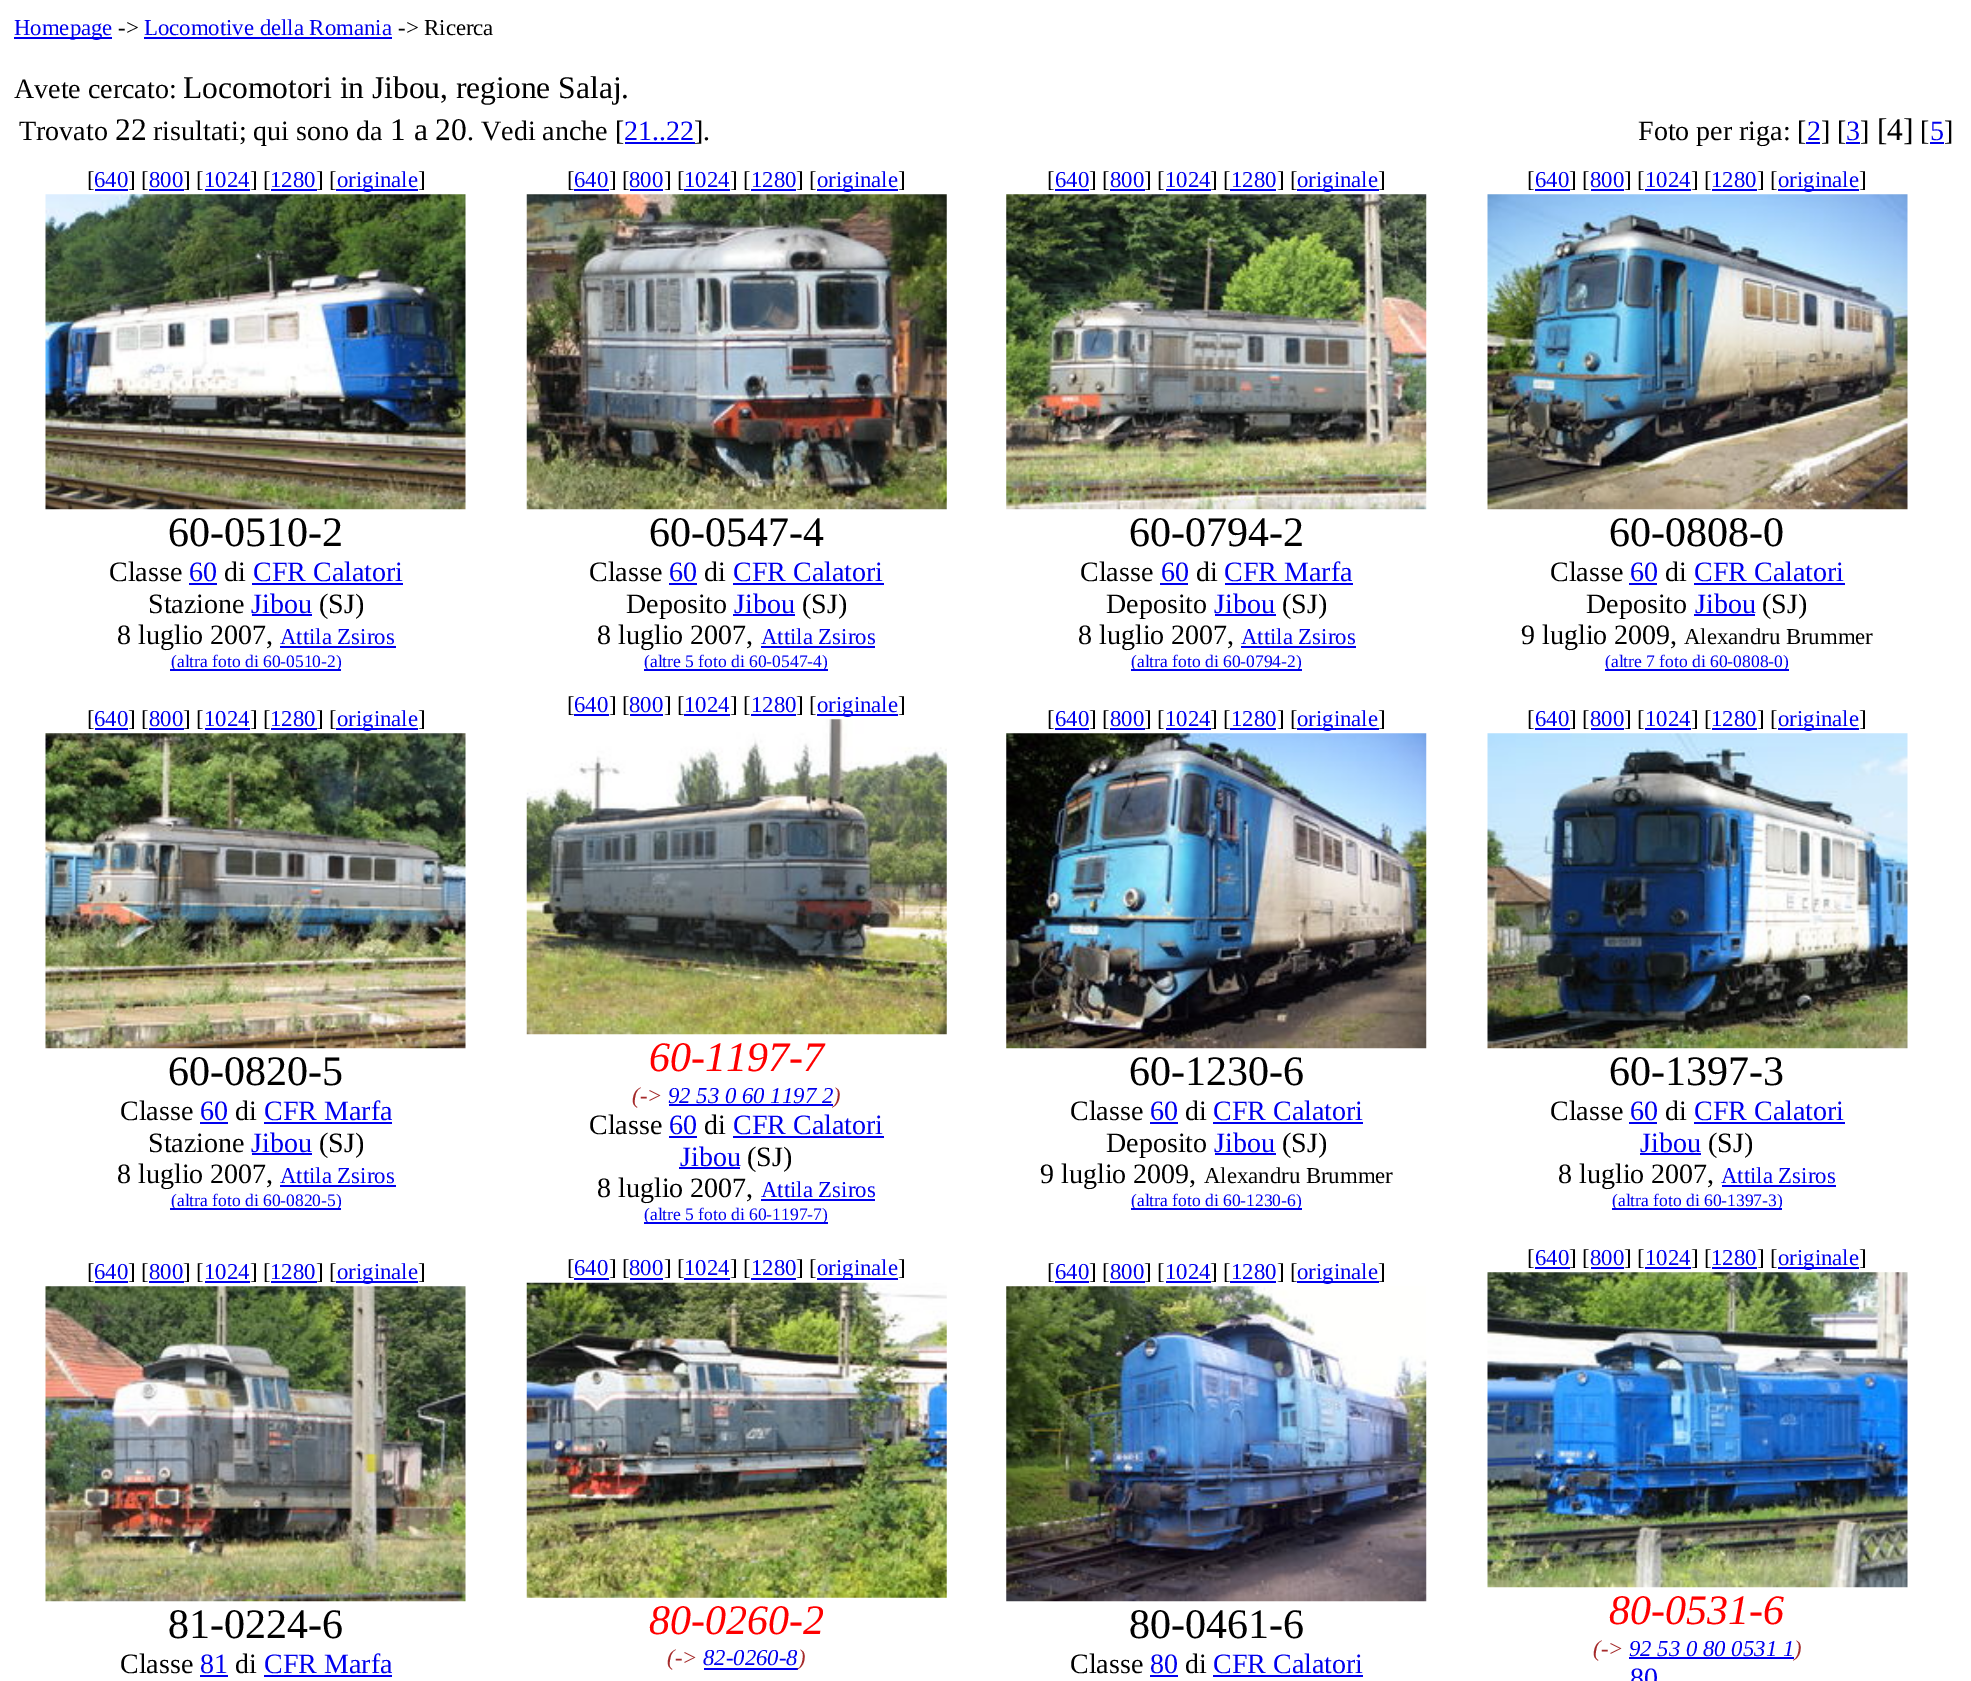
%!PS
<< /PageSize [1971 1681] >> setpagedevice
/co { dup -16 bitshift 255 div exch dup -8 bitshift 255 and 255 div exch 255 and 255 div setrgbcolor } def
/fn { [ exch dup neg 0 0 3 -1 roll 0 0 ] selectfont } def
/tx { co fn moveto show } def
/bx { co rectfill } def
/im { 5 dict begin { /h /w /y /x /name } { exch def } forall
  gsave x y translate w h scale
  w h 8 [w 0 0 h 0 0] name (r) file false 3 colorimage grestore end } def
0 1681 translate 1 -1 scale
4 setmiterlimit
0 0 1971 1681 16#FFFFFF bx
14 37 98 2 16#0000EE bx
144 37 248 2 16#0000EE bx
625 142 70 2 16#0000EE bx
1806 142 14 2 16#0000EE bx
1846 142 14 2 16#0000EE bx
1930 142 14 2 16#0000EE bx
95 189 33 2 16#0000EE bx
149 189 35 2 16#0000EE bx
205 189 45 2 16#0000EE bx
271 189 46 2 16#0000EE bx
336 189 82 2 16#0000EE bx
(media/1.raw) 45 194 421 316 im
189 583 28 2 16#0000EE bx
252 583 151 2 16#0000EE bx
252 614 60 2 16#0000EE bx
280 646 116 2 16#0000EE bx
170 669 171 2 16#0000EE bx
574 189 35 2 16#0000EE bx
630 189 33 2 16#0000EE bx
684 189 46 2 16#0000EE bx
751 189 45 2 16#0000EE bx
817 189 81 2 16#0000EE bx
(media/2.raw) 526 194 421 316 im
669 583 28 2 16#0000EE bx
733 583 151 2 16#0000EE bx
733 614 62 2 16#0000EE bx
761 646 114 2 16#0000EE bx
644 669 184 2 16#0000EE bx
1055 189 34 2 16#0000EE bx
1110 189 35 2 16#0000EE bx
1166 189 45 2 16#0000EE bx
1297 189 82 2 16#0000EE bx
(media/3.raw) 1006 194 421 316 im
1160 583 28 2 16#0000EE bx
1225 583 128 2 16#0000EE bx
1215 614 61 2 16#0000EE bx
1241 646 115 2 16#0000EE bx
1131 669 171 2 16#0000EE bx
1535 189 35 2 16#0000EE bx
1591 189 33 2 16#0000EE bx
1645 189 46 2 16#0000EE bx
1712 189 45 2 16#0000EE bx
1778 189 81 2 16#0000EE bx
(media/4.raw) 1487 194 421 316 im
1629 583 28 2 16#0000EE bx
1694 583 151 2 16#0000EE bx
1694 614 61 2 16#0000EE bx
1605 669 184 2 16#0000EE bx
95 728 33 2 16#0000EE bx
149 728 35 2 16#0000EE bx
205 728 45 2 16#0000EE bx
271 728 46 2 16#0000EE bx
336 728 82 2 16#0000EE bx
(media/5.raw) 45 733 421 316 im
200 1122 28 2 16#0000EE bx
264 1122 128 2 16#0000EE bx
252 1153 60 2 16#0000EE bx
280 1185 116 2 16#0000EE bx
170 1208 171 2 16#0000EE bx
574 714 35 2 16#0000EE bx
630 714 33 2 16#0000EE bx
684 714 46 2 16#0000EE bx
751 714 45 2 16#0000EE bx
817 714 81 2 16#0000EE bx
(media/6.raw) 526 719 421 316 im
669 1104 164 2 16#0000EE bx
669 1136 28 2 16#0000EE bx
733 1136 151 2 16#0000EE bx
679 1167 61 2 16#0000EE bx
761 1199 114 2 16#0000EE bx
644 1222 184 2 16#0000EE bx
1055 728 34 2 16#0000EE bx
1110 728 35 2 16#0000EE bx
1166 728 45 2 16#0000EE bx
1297 728 82 2 16#0000EE bx
(media/7.raw) 1006 733 421 316 im
1150 1122 28 2 16#0000EE bx
1213 1122 150 2 16#0000EE bx
1215 1153 61 2 16#0000EE bx
1131 1208 171 2 16#0000EE bx
1535 728 35 2 16#0000EE bx
1591 728 33 2 16#0000EE bx
1645 728 46 2 16#0000EE bx
1712 728 45 2 16#0000EE bx
1778 728 81 2 16#0000EE bx
(media/8.raw) 1487 733 421 316 im
1629 1122 28 2 16#0000EE bx
1694 1122 151 2 16#0000EE bx
1640 1153 61 2 16#0000EE bx
1722 1185 114 2 16#0000EE bx
1612 1208 170 2 16#0000EE bx
95 1281 33 2 16#0000EE bx
149 1281 35 2 16#0000EE bx
205 1281 45 2 16#0000EE bx
271 1281 46 2 16#0000EE bx
336 1281 82 2 16#0000EE bx
(media/9.raw) 45 1286 421 316 im
200 1675 28 2 16#0000EE bx
264 1675 128 2 16#0000EE bx
574 1278 35 2 16#0000EE bx
630 1278 33 2 16#0000EE bx
684 1278 46 2 16#0000EE bx
751 1278 45 2 16#0000EE bx
817 1278 81 2 16#0000EE bx
(media/10.raw) 526 1282 421 316 im
704 1668 94 2 16#0000EE bx
1055 1281 34 2 16#0000EE bx
1110 1281 35 2 16#0000EE bx
1166 1281 45 2 16#0000EE bx
1297 1281 82 2 16#0000EE bx
(media/11.raw) 1006 1286 421 316 im
1150 1675 28 2 16#0000EE bx
1213 1675 150 2 16#0000EE bx
1535 1267 35 2 16#0000EE bx
1591 1267 33 2 16#0000EE bx
1645 1267 46 2 16#0000EE bx
1712 1267 45 2 16#0000EE bx
1778 1267 81 2 16#0000EE bx
(media/12.raw) 1487 1272 421 316 im
1629 1657 165 2 16#0000EE bx
(Homepage) 14 35 /LiberationSerif-Regular 22.75 16#0000EE tx
(->) 118 35 /LiberationSerif-Regular 22.75 16#000000 tx
(Locomotive della Romania) 144 35 /LiberationSerif-Regular 22.75 16#0000EE tx
(-> Ricerca) 398 35 /LiberationSerif-Regular 22.75 16#000000 tx
(Avete cercato:) 14 98 /LiberationSerif-Regular 28 16#000000 tx
(Locomotori in Jibou, regione Salaj.) 183 98 /LiberationSerif-Regular 31.5 16#000000 tx
(Trovato) 19 140 /LiberationSerif-Regular 28 16#000000 tx
(22) 115 140 /LiberationSerif-Regular 31.5 16#000000 tx
(risultati; qui sono da) 153 140 /LiberationSerif-Regular 28 16#000000 tx
(1 a 20) 390 140 /LiberationSerif-Regular 31.5 16#000000 tx
(. Vedi anche [) 467 140 /LiberationSerif-Regular 28 16#000000 tx
(21..22) 624 140 /LiberationSerif-Regular 28 16#0000EE tx
(].) 694 140 /LiberationSerif-Regular 28 16#000000 tx
(Foto per riga: [) 1638 140 /LiberationSerif-Regular 28 16#000000 tx
(2) 1807 140 /LiberationSerif-Regular 28 16#0000EE tx
(] [) 1821 140 /LiberationSerif-Regular 28 16#000000 tx
(3) 1846 140 /LiberationSerif-Regular 28 16#0000EE tx
(]) 1860 140 /LiberationSerif-Regular 28 16#000000 tx
([4]) 1877 140 /LiberationSerif-Regular 31.5 16#000000 tx
([) 1920 140 /LiberationSerif-Regular 28 16#000000 tx
(5) 1930 140 /LiberationSerif-Regular 28 16#0000EE tx
(]) 1944 140 /LiberationSerif-Regular 28 16#000000 tx
([) 87 187 /LiberationSerif-Regular 22.75 16#000000 tx
(640) 94 187 /LiberationSerif-Regular 22.75 16#0000EE tx
(] [) 128 187 /LiberationSerif-Regular 22.75 16#000000 tx
(800) 149 187 /LiberationSerif-Regular 22.75 16#0000EE tx
(] [) 183 187 /LiberationSerif-Regular 22.75 16#000000 tx
(1024) 204 187 /LiberationSerif-Regular 22.75 16#0000EE tx
(] [) 250 187 /LiberationSerif-Regular 22.75 16#000000 tx
(1280) 270 187 /LiberationSerif-Regular 22.75 16#0000EE tx
(] [) 316 187 /LiberationSerif-Regular 22.75 16#000000 tx
(originale) 337 187 /LiberationSerif-Regular 22.75 16#0000EE tx
(]) 418 187 /LiberationSerif-Regular 22.75 16#000000 tx
(60-0510-2) 168 546 /LiberationSerif-Regular 42 16#000000 tx
(Classe) 109 581 /LiberationSerif-Regular 28 16#000000 tx
(60) 189 581 /LiberationSerif-Regular 28 16#0000EE tx
(di) 224 581 /LiberationSerif-Regular 28 16#000000 tx
(CFR Calatori) 253 581 /LiberationSerif-Regular 28 16#0000EE tx
(Stazione) 148 613 /LiberationSerif-Regular 28 16#000000 tx
(Jibou) 251 613 /LiberationSerif-Regular 28 16#0000EE tx
(\(SJ\)) 319 613 /LiberationSerif-Regular 28 16#000000 tx
(8 luglio 2007,) 117 644 /LiberationSerif-Regular 28 16#000000 tx
(Attila Zsiros) 280 644 /LiberationSerif-Regular 22.75 16#0000EE tx
(\(altra foto di 60-0510-2\)) 171 667 /LiberationSerif-Regular 17.5 16#0000EE tx
([) 567 187 /LiberationSerif-Regular 22.75 16#000000 tx
(640) 574 187 /LiberationSerif-Regular 22.75 16#0000EE tx
(] [) 609 187 /LiberationSerif-Regular 22.75 16#000000 tx
(800) 629 187 /LiberationSerif-Regular 22.75 16#0000EE tx
(] [) 664 187 /LiberationSerif-Regular 22.75 16#000000 tx
(1024) 684 187 /LiberationSerif-Regular 22.75 16#0000EE tx
(] [) 730 187 /LiberationSerif-Regular 22.75 16#000000 tx
(1280) 751 187 /LiberationSerif-Regular 22.75 16#0000EE tx
(] [) 796 187 /LiberationSerif-Regular 22.75 16#000000 tx
(originale) 817 187 /LiberationSerif-Regular 22.75 16#0000EE tx
(]) 898 187 /LiberationSerif-Regular 22.75 16#000000 tx
(60-0547-4) 649 546 /LiberationSerif-Regular 42 16#000000 tx
(Classe) 589 581 /LiberationSerif-Regular 28 16#000000 tx
(60) 669 581 /LiberationSerif-Regular 28 16#0000EE tx
(di) 704 581 /LiberationSerif-Regular 28 16#000000 tx
(CFR Calatori) 733 581 /LiberationSerif-Regular 28 16#0000EE tx
(Deposito) 626 613 /LiberationSerif-Regular 28 16#000000 tx
(Jibou) 734 613 /LiberationSerif-Regular 28 16#0000EE tx
(\(SJ\)) 802 613 /LiberationSerif-Regular 28 16#000000 tx
(8 luglio 2007,) 597 644 /LiberationSerif-Regular 28 16#000000 tx
(Attila Zsiros) 761 644 /LiberationSerif-Regular 22.75 16#0000EE tx
(\(altre 5 foto di 60-0547-4\)) 644 667 /LiberationSerif-Regular 17.5 16#0000EE tx
([) 1047 187 /LiberationSerif-Regular 22.75 16#000000 tx
(640) 1055 187 /LiberationSerif-Regular 22.75 16#0000EE tx
(] [) 1089 187 /LiberationSerif-Regular 22.75 16#000000 tx
(800) 1110 187 /LiberationSerif-Regular 22.75 16#0000EE tx
(] [) 1144 187 /LiberationSerif-Regular 22.75 16#000000 tx
(1024) 1165 187 /LiberationSerif-Regular 22.75 16#0000EE tx
(] [) 1210 187 /LiberationSerif-Regular 22.75 16#000000 tx
1230 189 46 2 16#0000EE bx
(1280) 1231 187 /LiberationSerif-Regular 22.75 16#0000EE tx
(] [) 1277 187 /LiberationSerif-Regular 22.75 16#000000 tx
(originale) 1297 187 /LiberationSerif-Regular 22.75 16#0000EE tx
(]) 1378 187 /LiberationSerif-Regular 22.75 16#000000 tx
(60-0794-2) 1129 546 /LiberationSerif-Regular 42 16#000000 tx
(Classe) 1080 581 /LiberationSerif-Regular 28 16#000000 tx
(60) 1161 581 /LiberationSerif-Regular 28 16#0000EE tx
(di) 1196 581 /LiberationSerif-Regular 28 16#000000 tx
(CFR Marfa) 1224 581 /LiberationSerif-Regular 28 16#0000EE tx
(Deposito) 1106 613 /LiberationSerif-Regular 28 16#000000 tx
(Jibou) 1214 613 /LiberationSerif-Regular 28 16#0000EE tx
(\(SJ\)) 1282 613 /LiberationSerif-Regular 28 16#000000 tx
(8 luglio 2007,) 1078 644 /LiberationSerif-Regular 28 16#000000 tx
(Attila Zsiros) 1241 644 /LiberationSerif-Regular 22.75 16#0000EE tx
(\(altra foto di 60-0794-2\)) 1131 667 /LiberationSerif-Regular 17.5 16#0000EE tx
([) 1527 187 /LiberationSerif-Regular 22.75 16#000000 tx
(640) 1535 187 /LiberationSerif-Regular 22.75 16#0000EE tx
(] [) 1569 187 /LiberationSerif-Regular 22.75 16#000000 tx
(800) 1590 187 /LiberationSerif-Regular 22.75 16#0000EE tx
(] [) 1624 187 /LiberationSerif-Regular 22.75 16#000000 tx
(1024) 1645 187 /LiberationSerif-Regular 22.75 16#0000EE tx
(] [) 1691 187 /LiberationSerif-Regular 22.75 16#000000 tx
(1280) 1711 187 /LiberationSerif-Regular 22.75 16#0000EE tx
(] [) 1757 187 /LiberationSerif-Regular 22.75 16#000000 tx
(originale) 1778 187 /LiberationSerif-Regular 22.75 16#0000EE tx
(]) 1859 187 /LiberationSerif-Regular 22.75 16#000000 tx
(60-0808-0) 1609 546 /LiberationSerif-Regular 42 16#000000 tx
(Classe) 1550 581 /LiberationSerif-Regular 28 16#000000 tx
(60) 1630 581 /LiberationSerif-Regular 28 16#0000EE tx
(di) 1665 581 /LiberationSerif-Regular 28 16#000000 tx
(CFR Calatori) 1694 581 /LiberationSerif-Regular 28 16#0000EE tx
(Deposito) 1586 613 /LiberationSerif-Regular 28 16#000000 tx
(Jibou) 1695 613 /LiberationSerif-Regular 28 16#0000EE tx
(\(SJ\)) 1762 613 /LiberationSerif-Regular 28 16#000000 tx
(9 luglio 2009,) 1521 644 /LiberationSerif-Regular 28 16#000000 tx
(Alexandru Brummer) 1684 644 /LiberationSerif-Regular 22.75 16#000000 tx
(\(altre 7 foto di 60-0808-0\)) 1605 667 /LiberationSerif-Regular 17.5 16#0000EE tx
([) 87 726 /LiberationSerif-Regular 22.75 16#000000 tx
(640) 94 726 /LiberationSerif-Regular 22.75 16#0000EE tx
(] [) 128 726 /LiberationSerif-Regular 22.75 16#000000 tx
(800) 149 726 /LiberationSerif-Regular 22.75 16#0000EE tx
(] [) 183 726 /LiberationSerif-Regular 22.75 16#000000 tx
(1024) 204 726 /LiberationSerif-Regular 22.75 16#0000EE tx
(] [) 250 726 /LiberationSerif-Regular 22.75 16#000000 tx
(1280) 270 726 /LiberationSerif-Regular 22.75 16#0000EE tx
(] [) 316 726 /LiberationSerif-Regular 22.75 16#000000 tx
(originale) 337 726 /LiberationSerif-Regular 22.75 16#0000EE tx
(]) 418 726 /LiberationSerif-Regular 22.75 16#000000 tx
(60-0820-5) 168 1085 /LiberationSerif-Regular 42 16#000000 tx
(Classe) 120 1120 /LiberationSerif-Regular 28 16#000000 tx
(60) 200 1120 /LiberationSerif-Regular 28 16#0000EE tx
(di) 235 1120 /LiberationSerif-Regular 28 16#000000 tx
(CFR Marfa) 264 1120 /LiberationSerif-Regular 28 16#0000EE tx
(Stazione) 148 1152 /LiberationSerif-Regular 28 16#000000 tx
(Jibou) 251 1152 /LiberationSerif-Regular 28 16#0000EE tx
(\(SJ\)) 319 1152 /LiberationSerif-Regular 28 16#000000 tx
(8 luglio 2007,) 117 1183 /LiberationSerif-Regular 28 16#000000 tx
(Attila Zsiros) 280 1183 /LiberationSerif-Regular 22.75 16#0000EE tx
(\(altra foto di 60-0820-5\)) 171 1206 /LiberationSerif-Regular 17.5 16#0000EE tx
([) 567 712 /LiberationSerif-Regular 22.75 16#000000 tx
(640) 574 712 /LiberationSerif-Regular 22.75 16#0000EE tx
(] [) 609 712 /LiberationSerif-Regular 22.75 16#000000 tx
(800) 629 712 /LiberationSerif-Regular 22.75 16#0000EE tx
(] [) 664 712 /LiberationSerif-Regular 22.75 16#000000 tx
(1024) 684 712 /LiberationSerif-Regular 22.75 16#0000EE tx
(] [) 730 712 /LiberationSerif-Regular 22.75 16#000000 tx
(1280) 751 712 /LiberationSerif-Regular 22.75 16#0000EE tx
(] [) 796 712 /LiberationSerif-Regular 22.75 16#000000 tx
(originale) 817 712 /LiberationSerif-Regular 22.75 16#0000EE tx
(]) 898 712 /LiberationSerif-Regular 22.75 16#000000 tx
(60-1197-7) 649 1071 /LiberationSerif-Italic 42 16#FF0000 tx
(\(->) 632 1103 /LiberationSerif-Italic 22.75 16#A52A2A tx
(92 53 0 60 1197 2) 668 1103 /LiberationSerif-Italic 22.75 16#0000EE tx
(\)) 833 1103 /LiberationSerif-Italic 22.75 16#A52A2A tx
(Classe) 589 1134 /LiberationSerif-Regular 28 16#000000 tx
(60) 669 1134 /LiberationSerif-Regular 28 16#0000EE tx
(di) 704 1134 /LiberationSerif-Regular 28 16#000000 tx
(CFR Calatori) 733 1134 /LiberationSerif-Regular 28 16#0000EE tx
(Jibou) 680 1166 /LiberationSerif-Regular 28 16#0000EE tx
(\(SJ\)) 747 1166 /LiberationSerif-Regular 28 16#000000 tx
(8 luglio 2007,) 597 1197 /LiberationSerif-Regular 28 16#000000 tx
(Attila Zsiros) 761 1197 /LiberationSerif-Regular 22.75 16#0000EE tx
(\(altre 5 foto di 60-1197-7\)) 644 1220 /LiberationSerif-Regular 17.5 16#0000EE tx
([) 1047 726 /LiberationSerif-Regular 22.75 16#000000 tx
(640) 1055 726 /LiberationSerif-Regular 22.75 16#0000EE tx
(] [) 1089 726 /LiberationSerif-Regular 22.75 16#000000 tx
(800) 1110 726 /LiberationSerif-Regular 22.75 16#0000EE tx
(] [) 1144 726 /LiberationSerif-Regular 22.75 16#000000 tx
(1024) 1165 726 /LiberationSerif-Regular 22.75 16#0000EE tx
(] [) 1210 726 /LiberationSerif-Regular 22.75 16#000000 tx
1230 728 46 2 16#0000EE bx
(1280) 1231 726 /LiberationSerif-Regular 22.75 16#0000EE tx
(] [) 1277 726 /LiberationSerif-Regular 22.75 16#000000 tx
(originale) 1297 726 /LiberationSerif-Regular 22.75 16#0000EE tx
(]) 1378 726 /LiberationSerif-Regular 22.75 16#000000 tx
(60-1230-6) 1129 1085 /LiberationSerif-Regular 42 16#000000 tx
(Classe) 1070 1120 /LiberationSerif-Regular 28 16#000000 tx
(60) 1150 1120 /LiberationSerif-Regular 28 16#0000EE tx
(di) 1185 1120 /LiberationSerif-Regular 28 16#000000 tx
(CFR Calatori) 1213 1120 /LiberationSerif-Regular 28 16#0000EE tx
(Deposito) 1106 1152 /LiberationSerif-Regular 28 16#000000 tx
(Jibou) 1214 1152 /LiberationSerif-Regular 28 16#0000EE tx
(\(SJ\)) 1282 1152 /LiberationSerif-Regular 28 16#000000 tx
(9 luglio 2009,) 1040 1183 /LiberationSerif-Regular 28 16#000000 tx
(Alexandru Brummer) 1204 1183 /LiberationSerif-Regular 22.75 16#000000 tx
(\(altra foto di 60-1230-6\)) 1131 1206 /LiberationSerif-Regular 17.5 16#0000EE tx
([) 1527 726 /LiberationSerif-Regular 22.75 16#000000 tx
(640) 1535 726 /LiberationSerif-Regular 22.75 16#0000EE tx
(] [) 1569 726 /LiberationSerif-Regular 22.75 16#000000 tx
(800) 1590 726 /LiberationSerif-Regular 22.75 16#0000EE tx
(] [) 1624 726 /LiberationSerif-Regular 22.75 16#000000 tx
(1024) 1645 726 /LiberationSerif-Regular 22.75 16#0000EE tx
(] [) 1691 726 /LiberationSerif-Regular 22.75 16#000000 tx
(1280) 1711 726 /LiberationSerif-Regular 22.75 16#0000EE tx
(] [) 1757 726 /LiberationSerif-Regular 22.75 16#000000 tx
(originale) 1778 726 /LiberationSerif-Regular 22.75 16#0000EE tx
(]) 1859 726 /LiberationSerif-Regular 22.75 16#000000 tx
(60-1397-3) 1609 1085 /LiberationSerif-Regular 42 16#000000 tx
(Classe) 1550 1120 /LiberationSerif-Regular 28 16#000000 tx
(60) 1630 1120 /LiberationSerif-Regular 28 16#0000EE tx
(di) 1665 1120 /LiberationSerif-Regular 28 16#000000 tx
(CFR Calatori) 1694 1120 /LiberationSerif-Regular 28 16#0000EE tx
(Jibou) 1640 1152 /LiberationSerif-Regular 28 16#0000EE tx
(\(SJ\)) 1708 1152 /LiberationSerif-Regular 28 16#000000 tx
(8 luglio 2007,) 1558 1183 /LiberationSerif-Regular 28 16#000000 tx
(Attila Zsiros) 1721 1183 /LiberationSerif-Regular 22.75 16#0000EE tx
(\(altra foto di 60-1397-3\)) 1612 1206 /LiberationSerif-Regular 17.5 16#0000EE tx
([) 87 1279 /LiberationSerif-Regular 22.75 16#000000 tx
(640) 94 1279 /LiberationSerif-Regular 22.75 16#0000EE tx
(] [) 128 1279 /LiberationSerif-Regular 22.75 16#000000 tx
(800) 149 1279 /LiberationSerif-Regular 22.75 16#0000EE tx
(] [) 183 1279 /LiberationSerif-Regular 22.75 16#000000 tx
(1024) 204 1279 /LiberationSerif-Regular 22.75 16#0000EE tx
(] [) 250 1279 /LiberationSerif-Regular 22.75 16#000000 tx
(1280) 270 1279 /LiberationSerif-Regular 22.75 16#0000EE tx
(] [) 316 1279 /LiberationSerif-Regular 22.75 16#000000 tx
(originale) 337 1279 /LiberationSerif-Regular 22.75 16#0000EE tx
(]) 418 1279 /LiberationSerif-Regular 22.75 16#000000 tx
(81-0224-6) 168 1638 /LiberationSerif-Regular 42 16#000000 tx
(Classe) 120 1673 /LiberationSerif-Regular 28 16#000000 tx
(81) 200 1673 /LiberationSerif-Regular 28 16#0000EE tx
(di) 235 1673 /LiberationSerif-Regular 28 16#000000 tx
(CFR Marfa) 264 1673 /LiberationSerif-Regular 28 16#0000EE tx
([) 567 1275 /LiberationSerif-Regular 22.75 16#000000 tx
(640) 574 1275 /LiberationSerif-Regular 22.75 16#0000EE tx
(] [) 609 1275 /LiberationSerif-Regular 22.75 16#000000 tx
(800) 629 1275 /LiberationSerif-Regular 22.75 16#0000EE tx
(] [) 664 1275 /LiberationSerif-Regular 22.75 16#000000 tx
(1024) 684 1275 /LiberationSerif-Regular 22.75 16#0000EE tx
(] [) 730 1275 /LiberationSerif-Regular 22.75 16#000000 tx
(1280) 751 1275 /LiberationSerif-Regular 22.75 16#0000EE tx
(] [) 796 1275 /LiberationSerif-Regular 22.75 16#000000 tx
(originale) 817 1275 /LiberationSerif-Regular 22.75 16#0000EE tx
(]) 898 1275 /LiberationSerif-Regular 22.75 16#000000 tx
(80-0260-2) 649 1634 /LiberationSerif-Italic 42 16#FF0000 tx
(\(->) 667 1665 /LiberationSerif-Italic 22.75 16#A52A2A tx
(82-0260-8) 703 1665 /LiberationSerif-Italic 22.75 16#0000EE tx
(\)) 798 1665 /LiberationSerif-Italic 22.75 16#A52A2A tx
([) 1047 1279 /LiberationSerif-Regular 22.75 16#000000 tx
(640) 1055 1279 /LiberationSerif-Regular 22.75 16#0000EE tx
(] [) 1089 1279 /LiberationSerif-Regular 22.75 16#000000 tx
(800) 1110 1279 /LiberationSerif-Regular 22.75 16#0000EE tx
(] [) 1144 1279 /LiberationSerif-Regular 22.75 16#000000 tx
(1024) 1165 1279 /LiberationSerif-Regular 22.75 16#0000EE tx
(] [) 1210 1279 /LiberationSerif-Regular 22.75 16#000000 tx
1230 1281 46 2 16#0000EE bx
(1280) 1231 1279 /LiberationSerif-Regular 22.75 16#0000EE tx
(] [) 1277 1279 /LiberationSerif-Regular 22.75 16#000000 tx
(originale) 1297 1279 /LiberationSerif-Regular 22.75 16#0000EE tx
(]) 1378 1279 /LiberationSerif-Regular 22.75 16#000000 tx
(80-0461-6) 1129 1638 /LiberationSerif-Regular 42 16#000000 tx
(Classe) 1070 1673 /LiberationSerif-Regular 28 16#000000 tx
(80) 1150 1673 /LiberationSerif-Regular 28 16#0000EE tx
(di) 1185 1673 /LiberationSerif-Regular 28 16#000000 tx
(CFR Calatori) 1213 1673 /LiberationSerif-Regular 28 16#0000EE tx
([) 1527 1265 /LiberationSerif-Regular 22.75 16#000000 tx
(640) 1535 1265 /LiberationSerif-Regular 22.75 16#0000EE tx
(] [) 1569 1265 /LiberationSerif-Regular 22.75 16#000000 tx
(800) 1590 1265 /LiberationSerif-Regular 22.75 16#0000EE tx
(] [) 1624 1265 /LiberationSerif-Regular 22.75 16#000000 tx
(1024) 1645 1265 /LiberationSerif-Regular 22.75 16#0000EE tx
(] [) 1691 1265 /LiberationSerif-Regular 22.75 16#000000 tx
(1280) 1711 1265 /LiberationSerif-Regular 22.75 16#0000EE tx
(] [) 1757 1265 /LiberationSerif-Regular 22.75 16#000000 tx
(originale) 1778 1265 /LiberationSerif-Regular 22.75 16#0000EE tx
(]) 1859 1265 /LiberationSerif-Regular 22.75 16#000000 tx
(80-0531-6) 1609 1624 /LiberationSerif-Italic 42 16#FF0000 tx
(\(->) 1593 1656 /LiberationSerif-Italic 22.75 16#A52A2A tx
(92 53 0 80 0531 1) 1629 1656 /LiberationSerif-Italic 22.75 16#0000EE tx
(\)) 1794 1656 /LiberationSerif-Italic 22.75 16#A52A2A tx
(80) 1630 1687 /LiberationSerif-Regular 28 16#0000EE tx
showpage
